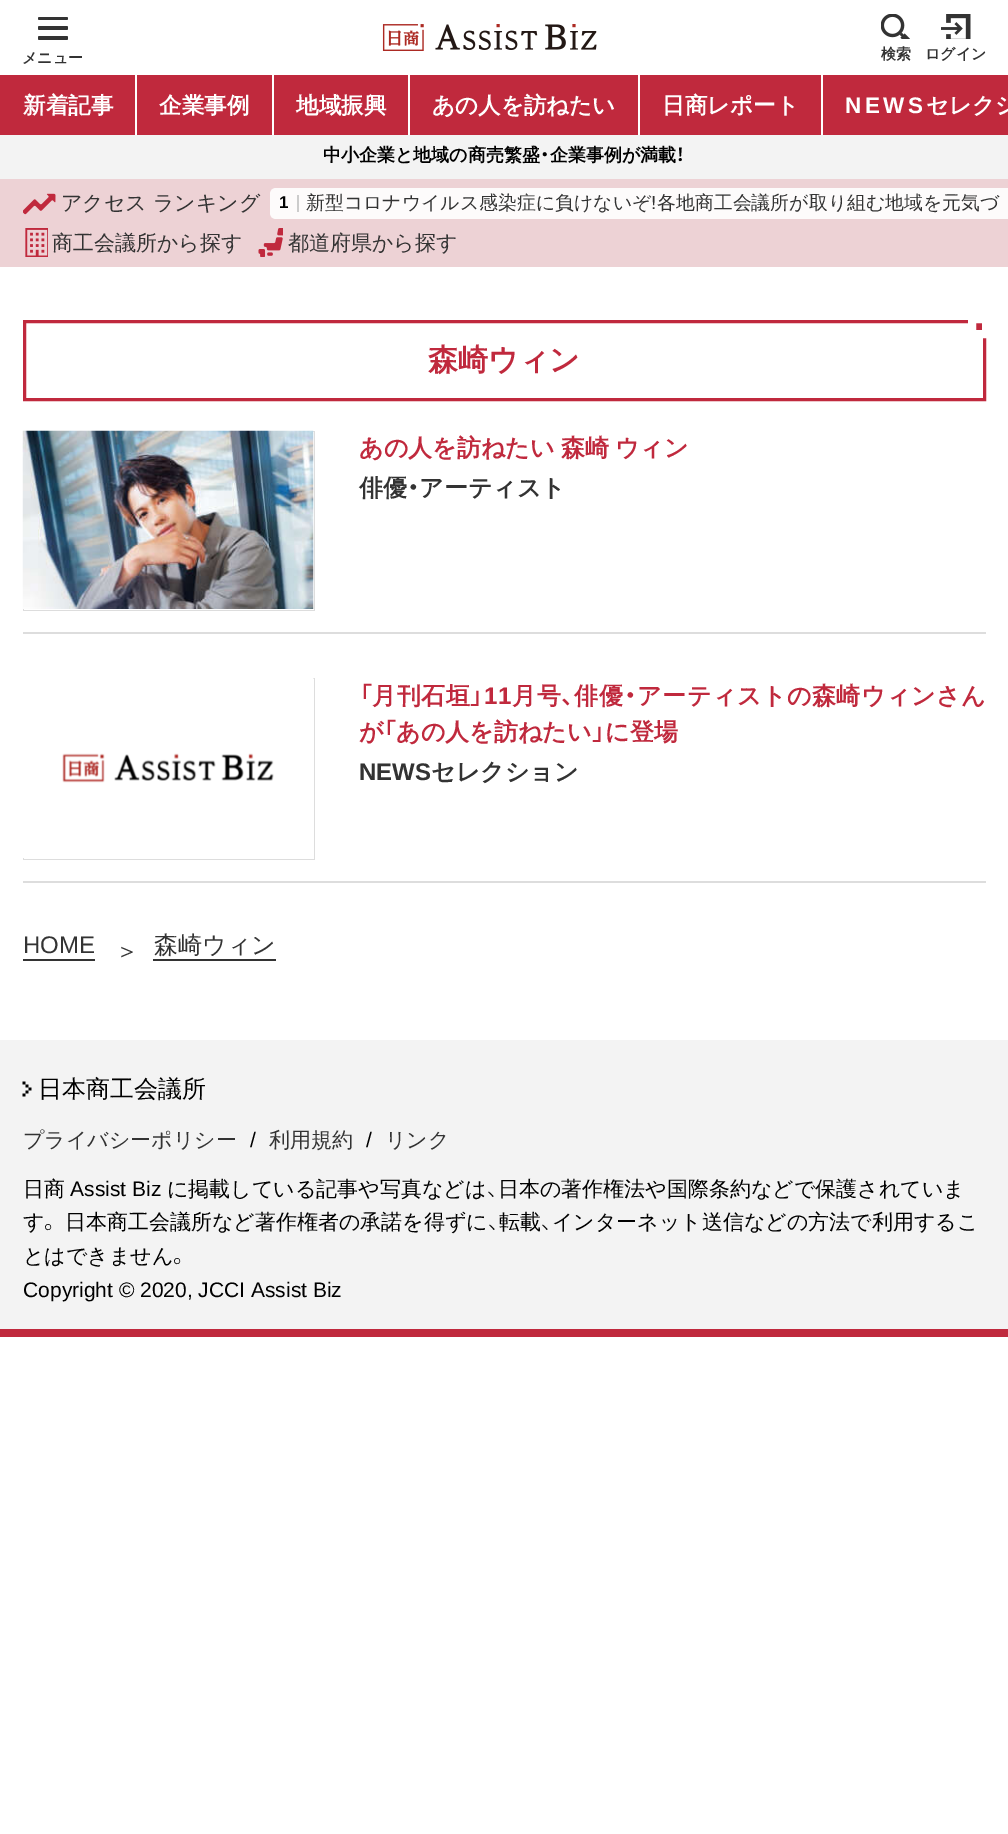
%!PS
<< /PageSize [1008 1834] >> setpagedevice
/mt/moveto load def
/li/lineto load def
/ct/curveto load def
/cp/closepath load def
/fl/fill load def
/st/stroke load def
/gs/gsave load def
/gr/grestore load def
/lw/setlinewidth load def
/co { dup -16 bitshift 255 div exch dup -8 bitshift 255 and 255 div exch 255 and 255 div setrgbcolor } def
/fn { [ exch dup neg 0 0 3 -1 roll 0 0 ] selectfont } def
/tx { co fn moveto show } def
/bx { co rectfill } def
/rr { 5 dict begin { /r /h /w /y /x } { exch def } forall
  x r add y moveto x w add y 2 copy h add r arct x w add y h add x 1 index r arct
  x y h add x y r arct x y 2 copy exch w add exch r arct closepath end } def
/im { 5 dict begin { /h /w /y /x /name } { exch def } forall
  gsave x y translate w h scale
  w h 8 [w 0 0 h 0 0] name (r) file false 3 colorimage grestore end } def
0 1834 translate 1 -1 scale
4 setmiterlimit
0 0 1008 1834 16#FFFFFF bx
(media/1.raw) 382 24 215 27 im
16#333333 co
38 17 30 3 1.5 rr fl
38 26 30 4 1.5 rr fl
38 36 30 4 1.5 rr fl
(media/2.raw) 881 14 29 25 im
(media/3.raw) 941 14 30 25 im
0 75 1008 60 16#C0293D bx
135 75 2 60 16#FFFFFF bx
272 75 2 60 16#FFFFFF bx
408 75 2 60 16#FFFFFF bx
638 75 2 60 16#FFFFFF bx
821 75 2 60 16#FFFFFF bx
0 179 1008 88 16#EDD2D5 bx
0 135 1008 44 16#F3F3F3 bx
(media/4.raw) 23 193 33 22 im
16#FDFBFB co
276 188 mt 1008 188 li 1008 219 li 276 219 li 272.5 219 270 216.5 270 213 ct 270 194 li 270 190.5 272.5 188 276 188 ct cp fl
297 195 2 17 16#CCCCCC bx
(media/5.raw) 25 228 23 29 im
(media/6.raw) 258 228 25 29 im
16#C0293D co
3 lw
24.5 321.5 960 78 rectstroke
972 319 mt 986 319 li 986 334 li 972 334 li cp gs fl gr
16#FFFFFF co
8 lw
st
23 632 963 2 16#DDDDDD bx
.8 lw
23.4 431.4 291.2 179.2 rectstroke
(media/7.raw) 22 430 292 179 im
23 881 963 2 16#DDDDDD bx
23.4 678.4 291.2 181.2 rectstroke
(media/8.raw) 23 678 291 180 im
23 959 72 2 16#333333 bx
153 959 123 2 16#333333 bx
0 1040 1008 289 16#F3F3F3 bx
0 1329 1008 8 16#C0293D bx
(media/9.raw) 22 1081 10 16 im
(メニュー) 22 63 /WenQuanYiZenHei-Bold 15 16#333333 tx
(検索) 881 59 /WenQuanYiZenHei-Bold 15 16#333333 tx
(ログイン) 925 59 /WenQuanYiZenHei-Bold 15 16#333333 tx
(新着記事) 23 113 /WenQuanYiZenHei-Bold 22.5 16#FFFFFF tx
(企業事例) 159 113 /WenQuanYiZenHei-Bold 22.5 16#FFFFFF tx
(地域振興) 296 113 /WenQuanYiZenHei-Bold 22.5 16#FFFFFF tx
(あの人を訪ねたい) 432 113 /WenQuanYiZenHei-Bold 22.5 16#FFFFFF tx
(日商レポート) 662 113 /WenQuanYiZenHei-Bold 22.5 16#FFFFFF tx
/LiberationSans-Bold 22.5 fn
845 113 mt 3.5 0 (NEWS) ashow
(セレクシ) 926 113 /WenQuanYiZenHei-Bold 22.5 16#FFFFFF tx
(中小企業と地域の商売繁盛) 323 161 /WenQuanYiZenHei-Bold 18 16#000000 tx
(・) 540 161 /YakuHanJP-Medium 18 16#000000 tx
(企業事例が満載) 550 161 /WenQuanYiZenHei-Bold 18 16#000000 tx
(！) 676 161 /YakuHanJP-Medium 18 16#000000 tx
(アクセス) 61 210 /WenQuanYiZenHei-Medium 21 16#333333 tx
(ランキング) 153 210 /WenQuanYiZenHei-Medium 21 16#333333 tx
(1) 279 208 /LiberationSans-Bold 17 16#000000 tx
(新型コロナウイルス感染症に負けないぞ) 306 209 /WenQuanYiZenHei-Medium 18.9 16#333333 tx
(!) 651 209 /LiberationSans-Regular 18.9 16#333333 tx
(各地商工会議所が取り組む地域を元気づ) 657 209 /WenQuanYiZenHei-Medium 18.9 16#333333 tx
(商工会議所から探す) 52 250 /WenQuanYiZenHei-Medium 21 16#333333 tx
(都道府県から探す) 288 250 /WenQuanYiZenHei-Medium 21 16#333333 tx
(森崎ウィン) 428 370 /WenQuanYiZenHei-Bold 30 16#C0293D tx
/WenQuanYiZenHei-Bold 24 fn
359 456 mt -1 0 32 (あの人を訪ねたい 森崎 ウィン) widthshow
(俳優) 359 496 /WenQuanYiZenHei-Bold 24 16#333333 tx
(・) 407 496 /YakuHanJP-Medium 24 16#333333 tx
(アーティスト) 419 496 /WenQuanYiZenHei-Bold 24 16#333333 tx
/YakuHanJP-Medium 24 fn
16#C0293D co
359 704 mt .5 0 (「) ashow
/WenQuanYiZenHei-Bold 24 fn
372 704 mt .5 0 (月刊石垣) ashow
/YakuHanJP-Medium 24 fn
470 704 mt .5 0 (」) ashow
/LiberationSans-Bold 24 fn
484 704 mt .5 0 (11) ashow
/WenQuanYiZenHei-Bold 24 fn
512 704 mt .5 0 (月号) ashow
574 704 mt .5 0 (俳優) ashow
/YakuHanJP-Medium 24 fn
624 704 mt .5 0 (・) ashow
/WenQuanYiZenHei-Bold 24 fn
637 704 mt .5 0 (アーティストの森崎ウィンさん) ashow
/YakuHanJP-Medium 24 fn
561 704 mt .5 0 (、) ashow
(が) 359 740 /WenQuanYiZenHei-Bold 24 16#C0293D tx
(「) 383 740 /YakuHanJP-Medium 24 16#C0293D tx
(あの人を訪ねたい) 396 740 /WenQuanYiZenHei-Bold 24 16#C0293D tx
(」) 592 740 /YakuHanJP-Medium 24 16#C0293D tx
(に登場) 605 740 /WenQuanYiZenHei-Bold 24 16#C0293D tx
(NEWS) 359 780 /LiberationSans-Bold 24 16#333333 tx
(セレクション) 431 780 /WenQuanYiZenHei-Bold 24 16#333333 tx
(HOME) 23 953 /LiberationSans-Regular 24 16#333333 tx
(＞) 115 959 /WenQuanYiZenHei-Medium 24 16#333333 tx
(森崎ウィン) 154 953 /WenQuanYiZenHei-Medium 24 16#333333 tx
(日本商工会議所) 38 1097 /WenQuanYiZenHei-Medium 24 16#000000 tx
(プライバシーポリシー) 23 1147 /WenQuanYiZenHei-Medium 21 16#333333 tx
(/) 250 1147 /LiberationSans-Regular 21 16#000000 tx
(利用規約) 269 1147 /WenQuanYiZenHei-Medium 21 16#333333 tx
(/) 366 1147 /LiberationSans-Regular 21 16#000000 tx
(リンク) 385 1147 /WenQuanYiZenHei-Medium 21 16#333333 tx
(日商) 23 1196 /WenQuanYiZenHei-Medium 21 16#000000 tx
(Assist Biz) 70 1196 /LiberationSans-Regular 21 16#000000 tx
(に掲載している記事や写真などは) 167 1196 /WenQuanYiZenHei-Medium 21 16#000000 tx
(、) 487 1196 /YakuHanJP-Light 21 16#000000 tx
(日本の著作権法や国際条約などで保護されていま) 498 1196 /WenQuanYiZenHei-Medium 21 16#000000 tx
(す) 23 1229 /WenQuanYiZenHei-Medium 21 16#000000 tx
(。) 44 1229 /YakuHanJP-Light 21 16#000000 tx
(日本商工会議所など著作権者の承諾を得ずに) 65 1229 /WenQuanYiZenHei-Medium 21 16#000000 tx
(、) 488 1229 /YakuHanJP-Light 21 16#000000 tx
(転載) 499 1229 /WenQuanYiZenHei-Medium 21 16#000000 tx
(、) 541 1229 /YakuHanJP-Light 21 16#000000 tx
(インターネット送信などの方法で利用するこ) 552 1229 /WenQuanYiZenHei-Medium 21 16#000000 tx
(とはできません) 23 1263 /WenQuanYiZenHei-Medium 21 16#000000 tx
(。) 173 1263 /YakuHanJP-Light 21 16#000000 tx
(Copyright © 2020, JCCI Assist Biz) 23 1297 /LiberationSans-Regular 21 16#000000 tx
showpage
